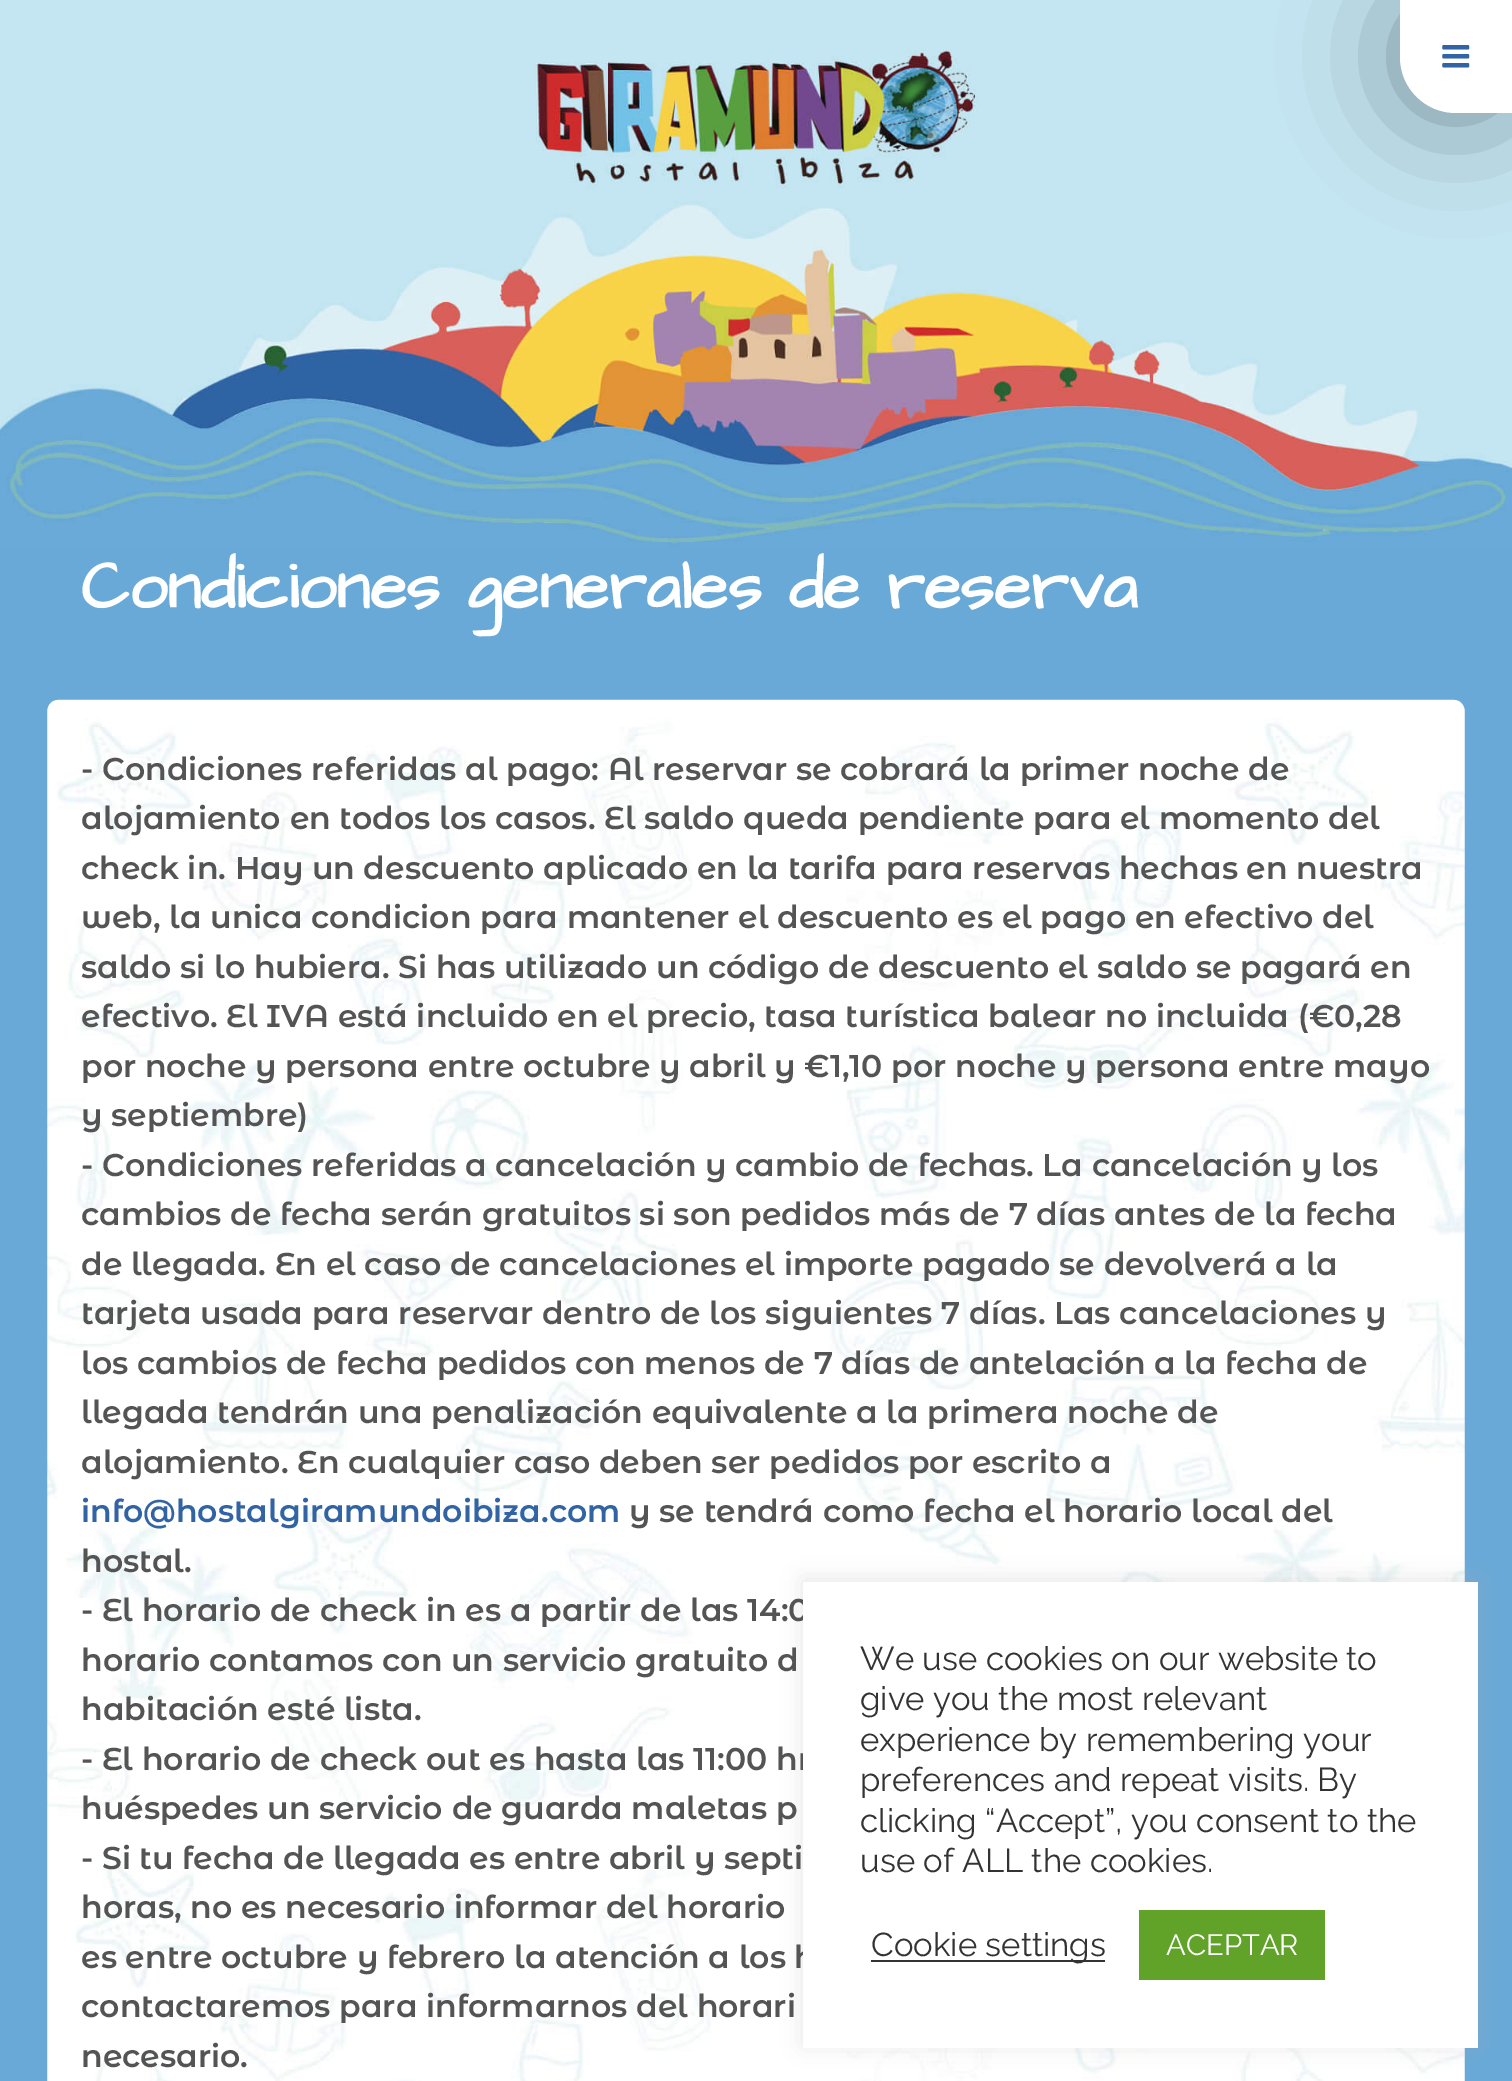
%!PS
<< /PageSize [1512 2081] /PageUsesTransparency true >> setpagedevice
/mt/moveto load def
/li/lineto load def
/ct/curveto load def
/cp/closepath load def
/fl/fill load def
/co { dup -16 bitshift 255 div exch dup -8 bitshift 255 and 255 div exch 255 and 255 div setrgbcolor } def
/fn { [ exch dup neg 0 0 3 -1 roll 0 0 ] selectfont } def
/tx { co fn moveto show } def
/bx { co rectfill } def
/al { dup .setfillconstantalpha .setstrokeconstantalpha } def
/rr { 5 dict begin { /r /h /w /y /x } { exch def } forall
  x r add y moveto x w add y 2 copy h add r arct x w add y h add x 1 index r arct
  x y h add x y r arct x y 2 copy exch w add exch r arct closepath end } def
/sh { 12 dict begin { /a /b /q /h /w /y /x } { exch def } forall gsave /was 0 def
  9 -2 -9 { dup b mul 4 div /e exch def 1 sub .425 mul 2.718 exch exp 1 add a .99 .min exch div /now exch def
    1 1 now sub 1 was sub div sub al /was now def
    w h .min e 2 mul add 0 gt { x e sub y e sub w e 2 mul add h e 2 mul add
      q e add b .6 mul add w h .min 2 div e add .min 0 .max rr fill } if } for grestore end } def
/im { 5 dict begin { /h /w /y /x /name } { exch def } forall
  gsave x y translate w h scale
  w h 8 [w 0 0 h 0 0] name (r) file false 3 colorimage grestore end } def
0 .pushpdf14devicefilter
0 2081 translate 1 -1 scale
4 setmiterlimit
0 0 1512 2081 16#68A9D7 bx
(media/2.raw) 0 0 1512 547 im
16#000000 co
1400 0 112 113 56 56 .4 sh
16#FFFFFF co
1400 0 mt 1512 0 li 1512 113 li 1456 113 li 1425 113 1400 88 1400 57 ct cp fl
(media/1.raw) 1442 45 28 23 im
(media/3.raw) 47 699 1418 1382 im
16#ACABAB co
803 1580 675 465 0 11 .3 sh
(Condiciones generales de reserva) 81 608 /ArchitectsDaughter-Bold 67.5 16#FFFFFF tx
(- Condiciones referidas al pago: Al reservar se cobrará la primer noche de) 81 780 /MontserratAlternates-SemiBold 31.5 16#545454 tx
(alojamiento en todos los casos. El saldo queda pendiente para el momento del) 81 829 /MontserratAlternates-SemiBold 31.5 16#545454 tx
(check in. Hay un descuento aplicado en la tarifa para reservas hechas en nuestra) 81 879 /MontserratAlternates-SemiBold 31.5 16#545454 tx
(web, la unica condicion para mantener el descuento es el pago en efectivo del) 81 928 /MontserratAlternates-SemiBold 31.5 16#545454 tx
(saldo si lo hubiera. Si has utilizado un código de descuento el saldo se pagará en) 81 978 /MontserratAlternates-SemiBold 31.5 16#545454 tx
(efectivo. El IVA está incluido en el precio, tasa turística balear no incluida \(€0,28) 81 1027 /MontserratAlternates-SemiBold 31.5 16#545454 tx
(por noche y persona entre octubre y abril y €1,10 por noche y persona entre mayo) 81 1077 /MontserratAlternates-SemiBold 31.5 16#545454 tx
(y septiembre\)) 81 1126 /MontserratAlternates-SemiBold 31.5 16#545454 tx
(- Condiciones referidas a cancelación y cambio de fechas. La cancelación y los) 81 1176 /MontserratAlternates-SemiBold 31.5 16#545454 tx
(cambios de fecha serán gratuitos si son pedidos más de 7 días antes de la fecha) 81 1225 /MontserratAlternates-SemiBold 31.5 16#545454 tx
(de llegada. En el caso de cancelaciones el importe pagado se devolverá a la) 81 1275 /MontserratAlternates-SemiBold 31.5 16#545454 tx
(tarjeta usada para reservar dentro de los siguientes 7 días. Las cancelaciones y) 81 1324 /MontserratAlternates-SemiBold 31.5 16#545454 tx
(los cambios de fecha pedidos con menos de 7 días de antelación a la fecha de) 81 1374 /MontserratAlternates-SemiBold 31.5 16#545454 tx
(llegada tendrán una penalización equivalente a la primera noche de) 81 1423 /MontserratAlternates-SemiBold 31.5 16#545454 tx
(alojamiento. En cualquier caso deben ser pedidos por escrito a) 81 1473 /MontserratAlternates-SemiBold 31.5 16#545454 tx
(info@hostalgiramundoibiza.com) 81 1522 /MontserratAlternates-SemiBold 31.5 16#3264A4 tx
(y se tendrá como fecha el horario local del) 629 1522 /MontserratAlternates-SemiBold 31.5 16#545454 tx
(hostal.) 81 1572 /MontserratAlternates-SemiBold 31.5 16#545454 tx
(- El horario de check in es a partir de las 14:0) 81 1621 /MontserratAlternates-SemiBold 31.5 16#545454 tx
(horario contamos con un servicio gratuito d) 81 1671 /MontserratAlternates-SemiBold 31.5 16#545454 tx
(habitación esté lista.) 81 1720 /MontserratAlternates-SemiBold 31.5 16#545454 tx
(- El horario de check out es hasta las 11:00 hr) 81 1770 /MontserratAlternates-SemiBold 31.5 16#545454 tx
(huéspedes un servicio de guarda maletas p) 81 1819 /MontserratAlternates-SemiBold 31.5 16#545454 tx
(- Si tu fecha de llegada es entre abril y septi) 81 1869 /MontserratAlternates-SemiBold 31.5 16#545454 tx
(horas, no es necesario informar del horario) 81 1918 /MontserratAlternates-SemiBold 31.5 16#545454 tx
(es entre octubre y febrero la atención a los h) 81 1968 /MontserratAlternates-SemiBold 31.5 16#545454 tx
(contactaremos para informarnos del horari) 81 2017 /MontserratAlternates-SemiBold 31.5 16#545454 tx
(necesario.) 81 2067 /MontserratAlternates-SemiBold 31.5 16#545454 tx
803 1582 675 466 16#FFFFFF bx
(We use cookies on our website to) 860 1670 /Raleway-Regular 33 16#333333 tx
(give you the most relevant) 860 1710 /Raleway-Regular 33 16#333333 tx
(experience by remembering your) 860 1751 /Raleway-Regular 33 16#333333 tx
(preferences and repeat visits. By) 860 1791 /Raleway-Regular 33 16#333333 tx
(clicking “Accept”, you consent to the) 860 1832 /Raleway-Regular 33 16#333333 tx
(use of ALL the cookies.) 860 1872 /Raleway-Regular 33 16#333333 tx
871 1960 234 2 16#333333 bx
(Cookie settings) 871 1956 /Raleway-Regular 33 16#333333 tx
1139 1910 186 70 16#61A229 bx
(ACEPTAR) 1166 1955 /Raleway-Regular 29.25 16#FFFFFF tx
.poppdf14devicefilter showpage
